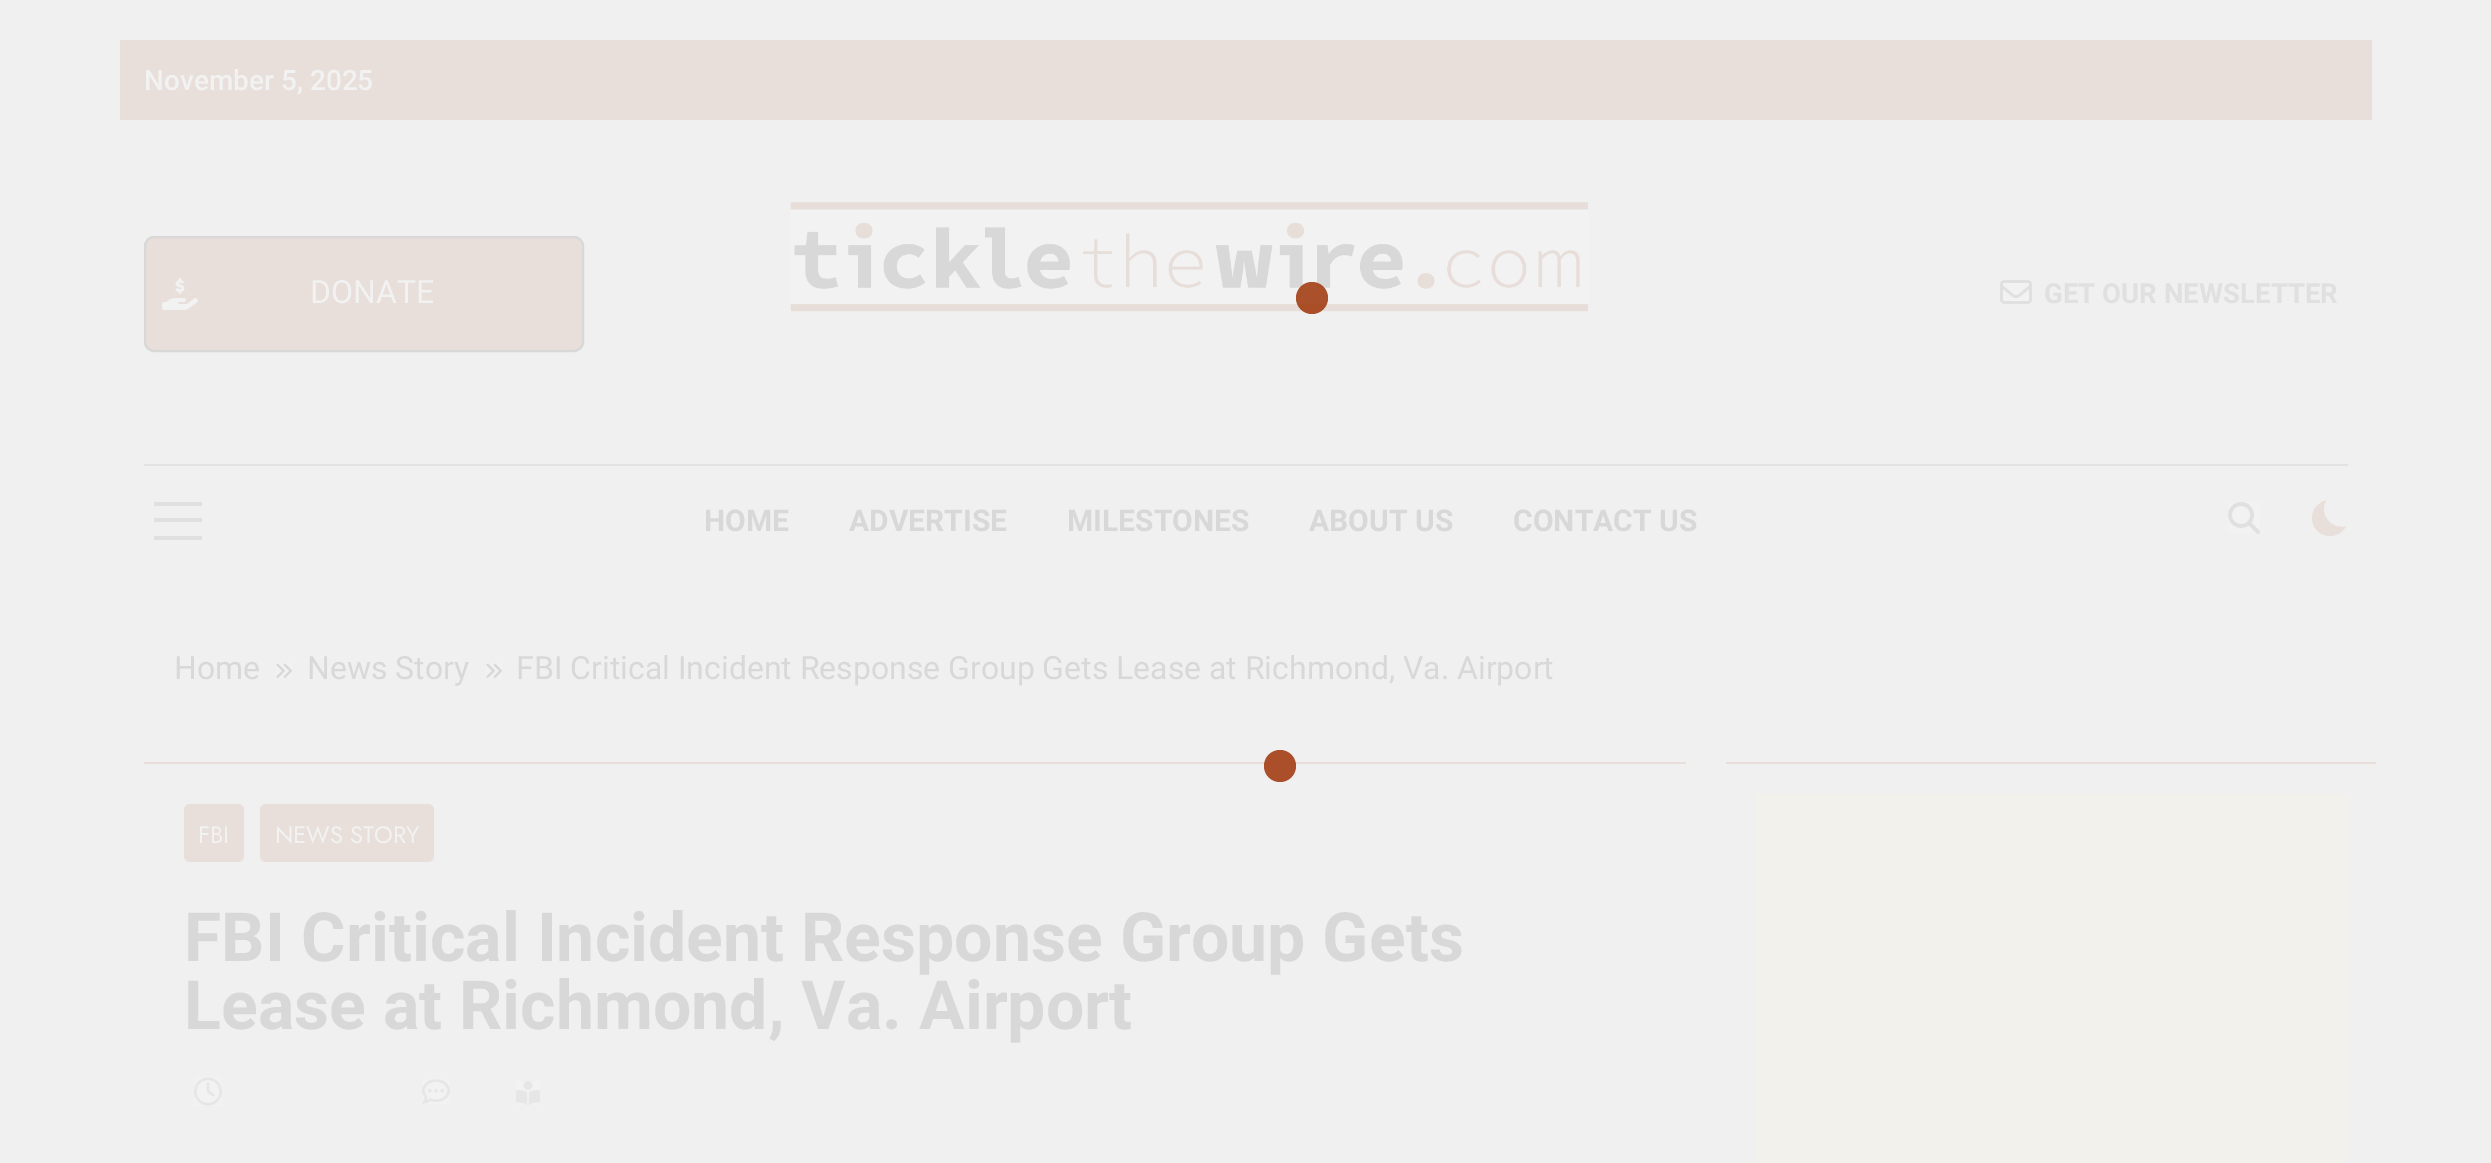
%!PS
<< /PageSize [2491 1163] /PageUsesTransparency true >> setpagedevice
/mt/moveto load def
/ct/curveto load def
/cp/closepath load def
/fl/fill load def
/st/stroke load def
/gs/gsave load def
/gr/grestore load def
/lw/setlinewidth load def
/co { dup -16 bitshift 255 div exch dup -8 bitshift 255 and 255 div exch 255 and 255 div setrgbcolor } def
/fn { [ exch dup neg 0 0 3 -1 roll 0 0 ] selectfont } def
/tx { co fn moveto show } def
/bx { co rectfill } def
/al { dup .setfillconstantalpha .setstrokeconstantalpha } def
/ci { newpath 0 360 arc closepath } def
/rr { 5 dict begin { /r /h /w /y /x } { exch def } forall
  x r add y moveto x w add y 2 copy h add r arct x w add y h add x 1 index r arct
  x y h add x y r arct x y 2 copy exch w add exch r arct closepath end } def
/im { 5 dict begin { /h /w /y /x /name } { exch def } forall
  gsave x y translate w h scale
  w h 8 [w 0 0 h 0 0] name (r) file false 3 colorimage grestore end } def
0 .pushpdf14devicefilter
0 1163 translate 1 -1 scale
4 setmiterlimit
0 0 2491 1163 16#F0F0F0 bx
120 40 2252 80 16#E8DEDA bx
145 237 438 114 9 rr gs fl gr
16#D8D8D8 co
2 lw
st
(media/1.raw) 162 278 36 32 im
(media/2.raw) 790 202 799 110 im
(media/3.raw) 2000 280 32 24 im
144 464 2204 2 16#E2E2E2 bx
154 502 48 4 16#E0E0E0 bx
154 518 48 4 16#E0E0E0 bx
154 536 48 4 16#E0E0E0 bx
(media/4.raw) 2228 502 32 32 im
16#E8DEDA co
2346 526.5 mt 2330.5 529.5 2319 514.5 2326 500.5 ct 2318 502.5 2312 509.5 2312 518 ct 2312 528 2320 536 2330 536 ct 2337 536 2342.5 532 2346 526.5 ct cp fl
0.9 al
16#A23E14 co
1312 298 16 ci fl
1 al
144 762 1542 2 16#E8DEDA bx
0.9 al
16#A23E14 co
1280 766 16 ci fl
1 al
(media/5.raw) 276 663 16 15 im
(media/5.raw) 486 663 16 15 im
16#E8DEDA co
184 804 60 58 6 rr fl
260 804 174 58 6 rr fl
(media/6.raw) 194 1077 28 29 im
(media/7.raw) 422 1079 28 25 im
(media/8.raw) 516 1081 24 24 im
1726 762 650 2 16#E8DEDA bx
1756 794 590 369 16#F2F1EB bx
(November 5, 2025) 144 90 /Roboto-Medium 28 16#F2F2F2 tx
(DONATE) 310 303 /Roboto-Regular 32 16#F2F2F2 tx
(GET OUR NEWSLETTER) 2044 303 /Roboto-Bold 27.6 16#E0E0E0 tx
(HOME) 704 531 /Roboto-Bold 30 16#D8D8D8 tx
(ADVERTISE) 849 531 /Roboto-Bold 30 16#D8D8D8 tx
(MILESTONES) 1067 531 /Roboto-Bold 30 16#D8D8D8 tx
(ABOUT US) 1309 531 /Roboto-Bold 30 16#D8D8D8 tx
(CONTACT US) 1513 531 /Roboto-Bold 30 16#D8D8D8 tx
(Home) 174 679 /Roboto-Regular 32 16#D8D8D8 tx
(News Story) 307 679 /Roboto-Regular 32 16#D8D8D8 tx
(FBI Critical Incident Response Group Gets Lease at Richmond, Va. Airport) 516 679 /Roboto-Regular 32 16#D8D8D8 tx
(FBI) 198 843 /Jost-Regular 23.75 16#F2F2F2 tx
(NEWS STORY) 275 843 /Jost-Regular 23.75 16#F2F2F2 tx
(FBI Critical Incident Response Group Gets) 184 961 /Roboto-Bold 68 16#D8D8D8 tx
(Lease at Richmond, Va. Airport) 184 1029 /Roboto-Bold 68 16#D8D8D8 tx
.poppdf14devicefilter showpage
